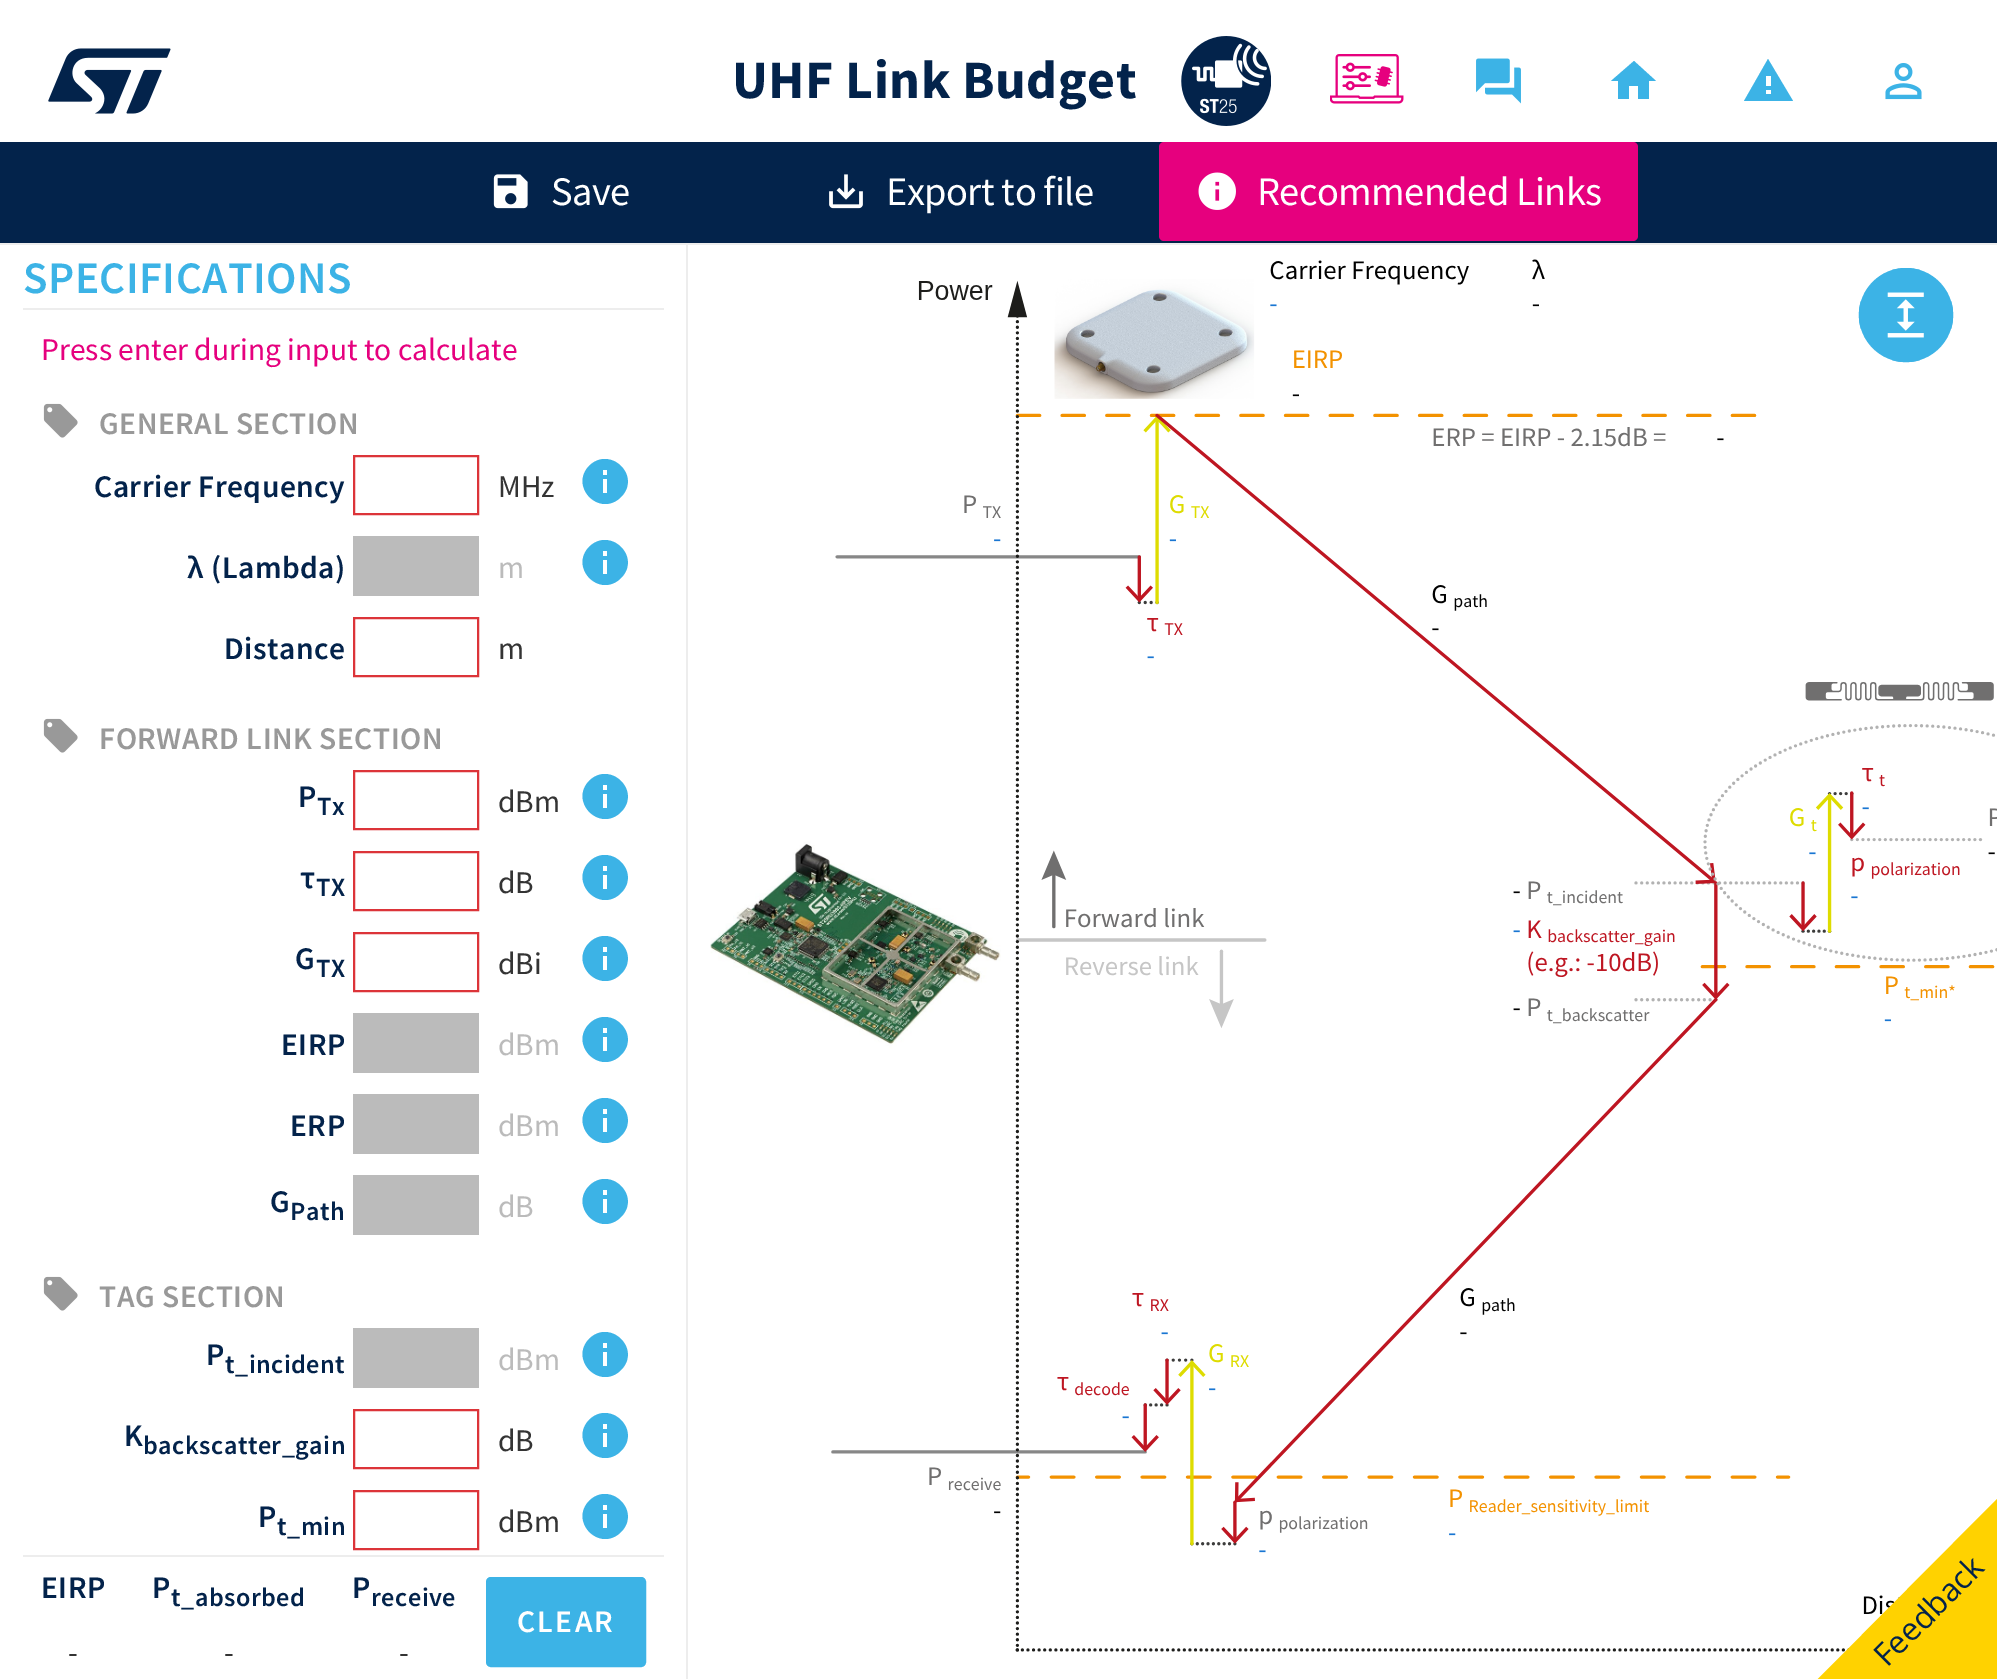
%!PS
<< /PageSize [1997 1679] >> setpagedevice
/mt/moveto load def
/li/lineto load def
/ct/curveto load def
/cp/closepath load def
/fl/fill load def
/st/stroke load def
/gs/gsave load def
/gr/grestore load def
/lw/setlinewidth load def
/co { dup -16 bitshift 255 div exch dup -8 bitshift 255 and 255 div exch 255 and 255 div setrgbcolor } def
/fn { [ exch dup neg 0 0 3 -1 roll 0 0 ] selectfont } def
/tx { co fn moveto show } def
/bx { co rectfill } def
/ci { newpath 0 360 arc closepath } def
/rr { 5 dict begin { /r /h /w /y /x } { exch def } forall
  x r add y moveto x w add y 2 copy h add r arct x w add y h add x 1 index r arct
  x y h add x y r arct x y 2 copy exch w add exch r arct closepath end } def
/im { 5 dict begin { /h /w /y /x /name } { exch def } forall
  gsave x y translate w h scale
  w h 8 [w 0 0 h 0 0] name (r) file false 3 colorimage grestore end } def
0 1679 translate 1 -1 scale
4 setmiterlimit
0 0 1997 1679 16#FFFFFF bx
(media/1.raw) 48 48 123 66 im
(media/2.raw) 1181 36 90 90 im
(media/3.raw) 1330 54 74 50 im
(media/4.raw) 1476 58 45 46 im
16#3CB3E6 co
1629 99 mt 1618 99 li 1618 81 li 1611 81 li 1634 61 li 1656 81 li 1649 81 li 1649 99 li 1638 99 li 1638 86 li 1629 86 li cp fl
1771 86 mt 1771 76 li 1766 76 li 1766 86 li cp 1771 94 mt 1771 90 li 1766 90 li 1766 94 li cp 1744 101 mt 1768 59 li 1793 101 li cp fl
(media/5.raw) 1885 63 37 37 im
0 142 1997 101 16#03234B bx
(media/6.raw) 493 174 35 35 im
(media/7.raw) 829 174 34 35 im
16#E6007E co
1159 142 479 99 5 rr fl
(media/8.raw) 1198 172 38 38 im
0 243 1997 2 16#EDEDED bx
23 308 641 2 16#EDEDED bx
(media/9.raw) 43 403 35 35 im
16#DC3439 co
2 lw
354 456 124 58 rectstroke
16#3CB3E6 co
607 475 mt 607 470 li 603 470 li 603 475 li cp 607 493 mt 607 479 li 603 479 li 603 493 li cp 589 466 mt 610 445 642 476 621 497 ct 600 518 569 487 589 466 ct cp fl
353 536 126 60 16#BBBBBB bx
16#3CB3E6 co
607 556 mt 607 551 li 603 551 li 603 556 li cp 607 574 mt 607 560 li 603 560 li 603 574 li cp 589 547 mt 610 526 642 557 621 578 ct 600 599 569 568 589 547 ct cp fl
16#DC3439 co
354 618 124 58 rectstroke
(media/9.raw) 43 718 35 35 im
354 771 124 58 rectstroke
16#3CB3E6 co
607 790 mt 607 785 li 603 785 li 603 790 li cp 607 808 mt 607 794 li 603 794 li 603 808 li cp 589 781 mt 610 760 642 791 621 812 ct 600 833 569 802 589 781 ct cp fl
16#DC3439 co
354 852 124 58 rectstroke
16#3CB3E6 co
607 871 mt 607 866 li 603 866 li 603 871 li cp 607 889 mt 607 875 li 603 875 li 603 889 li cp 589 862 mt 610 841 642 872 621 893 ct 600 914 569 883 589 862 ct cp fl
16#DC3439 co
354 933 124 58 rectstroke
16#3CB3E6 co
607 952 mt 607 947 li 603 947 li 603 952 li cp 607 970 mt 607 956 li 603 956 li 603 970 li cp 589 943 mt 610 922 642 953 621 974 ct 600 995 569 964 589 943 ct cp fl
353 1013 126 60 16#BBBBBB bx
16#3CB3E6 co
607 1033 mt 607 1028 li 603 1028 li 603 1033 li cp 607 1051 mt 607 1037 li 603 1037 li 603 1051 li cp 589 1024 mt 610 1003 642 1034 621 1055 ct 600 1076 569 1045 589 1024 ct cp fl
353 1094 126 60 16#BBBBBB bx
16#3CB3E6 co
607 1114 mt 607 1109 li 603 1109 li 603 1114 li cp 607 1132 mt 607 1118 li 603 1118 li 603 1132 li cp 589 1105 mt 610 1084 642 1115 621 1136 ct 600 1157 569 1126 589 1105 ct cp fl
353 1175 126 60 16#BBBBBB bx
16#3CB3E6 co
607 1195 mt 607 1190 li 603 1190 li 603 1195 li cp 607 1213 mt 607 1199 li 603 1199 li 603 1213 li cp 589 1186 mt 610 1165 642 1196 621 1217 ct 600 1238 569 1207 589 1186 ct cp fl
(media/9.raw) 43 1276 35 35 im
353 1328 126 60 16#BBBBBB bx
16#3CB3E6 co
607 1348 mt 607 1343 li 603 1343 li 603 1348 li cp 607 1366 mt 607 1352 li 603 1352 li 603 1366 li cp 589 1339 mt 610 1318 642 1349 621 1370 ct 600 1391 569 1360 589 1339 ct cp fl
16#DC3439 co
354 1410 124 58 rectstroke
16#3CB3E6 co
607 1429 mt 607 1424 li 603 1424 li 603 1429 li cp 607 1447 mt 607 1433 li 603 1433 li 603 1447 li cp 589 1420 mt 610 1399 642 1430 621 1451 ct 600 1472 569 1441 589 1420 ct cp fl
16#DC3439 co
354 1491 124 58 rectstroke
16#3CB3E6 co
607 1510 mt 607 1505 li 603 1505 li 603 1510 li cp 607 1528 mt 607 1514 li 603 1514 li 603 1528 li cp 589 1501 mt 610 1480 642 1511 621 1532 ct 600 1553 569 1522 589 1501 ct cp fl
23 1555 641 2 16#EDEDED bx
16#3CB3E6 co
488.5 1579.5 155 85 2.5 rr gs fl gr
5 lw
st
686 245 2 1434 16#EDEDED bx
(media/10.raw) 710 259 1287 1393 im
16#3CB3E6 co
1906 315 47 ci fl
1906 268 mt 1901 268 1897 269 1892 270 ct 1920 270 li 1915 269 1911 268 1906 268 ct cp 1951 301 mt 1954 310 1954 320 1951 329 ct cp 1920 360 mt 1911 363 1901 363 1892 360 ct cp 1861 329 mt 1858 320 1858 310 1861 301 ct cp eofill
(media/11.raw) 1887 292 37 46 im
16#FFD200 co
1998 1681 mt 1816 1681 li 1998 1498 li cp fl
/SourceSansPro-Bold 54 fn
16#03234B co
732 98 mt .5 0 (UHF Link Budget) ashow
/SourceSansPro-Regular 40.5 fn
16#FFFFFF co
551 205 mt -.6 0 (Save) ashow
886 205 mt -.6 0 (Export to file) ashow
1257 205 mt -.6 0 (Recommended Links) ashow
/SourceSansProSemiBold-SemiBold 45 fn
16#3CB3E6 co
23 293 mt .5 0 (SPECIFICATIONS) ashow
(Press enter during input to calculate) 41 360 /SourceSansPro-Regular 31.5 16#E6007E tx
/SourceSansProSemiBold-SemiBold 31.5 fn
16#999999 co
99 434 mt .5 0 (GENERAL SECTION) ashow
16#03234B co
94 497 mt .5 0 (Carrier Frequency) ashow
(MHz) 498 497 /SourceSansPro-Regular 31.5 16#343434 tx
/SourceSansProSemiBold-SemiBold 31.5 fn
16#03234B co
187 578 mt .5 0 (λ \(Lambda\)) ashow
(m) 498 578 /SourceSansPro-Regular 31.5 16#BBBBBB tx
/SourceSansProSemiBold-SemiBold 31.5 fn
16#03234B co
224 659 mt .5 0 (Distance) ashow
(m) 498 659 /SourceSansPro-Regular 31.5 16#343434 tx
/SourceSansProSemiBold-SemiBold 31.5 fn
16#999999 co
99 749 mt .5 0 (FORWARD LINK SECTION) ashow
16#03234B co
298 807 mt .5 0 (P) ashow
/SourceSansProSemiBold-SemiBold 26.25 fn
317 815 mt .5 0 (Tx) ashow
(dBm) 498 812 /SourceSansPro-Regular 31.5 16#343434 tx
/SourceSansProSemiBold-SemiBold 31.5 fn
16#03234B co
300 888 mt .5 0 (τ) ashow
/SourceSansProSemiBold-SemiBold 26.25 fn
316 896 mt .5 0 (TX) ashow
(dB) 498 893 /SourceSansPro-Regular 31.5 16#343434 tx
/SourceSansProSemiBold-SemiBold 31.5 fn
16#03234B co
295 969 mt .5 0 (G) ashow
/SourceSansProSemiBold-SemiBold 26.25 fn
316 977 mt .5 0 (TX) ashow
(dBi) 498 974 /SourceSansPro-Regular 31.5 16#343434 tx
/SourceSansProSemiBold-SemiBold 31.5 fn
16#03234B co
281 1055 mt .5 0 (EIRP) ashow
(dBm) 498 1055 /SourceSansPro-Regular 31.5 16#BBBBBB tx
/SourceSansProSemiBold-SemiBold 31.5 fn
16#03234B co
290 1136 mt .5 0 (ERP) ashow
(dBm) 498 1136 /SourceSansPro-Regular 31.5 16#BBBBBB tx
/SourceSansProSemiBold-SemiBold 31.5 fn
16#03234B co
270 1212 mt .5 0 (G) ashow
/SourceSansProSemiBold-SemiBold 26.25 fn
290 1220 mt .5 0 (Path) ashow
(dB) 498 1217 /SourceSansPro-Regular 31.5 16#BBBBBB tx
/SourceSansProSemiBold-SemiBold 31.5 fn
16#999999 co
99 1307 mt .5 0 (TAG SECTION) ashow
16#03234B co
206 1365 mt .5 0 (P) ashow
/SourceSansProSemiBold-SemiBold 26.25 fn
225 1373 mt .5 0 (t_incident) ashow
(dBm) 498 1370 /SourceSansPro-Regular 31.5 16#BBBBBB tx
/SourceSansProSemiBold-SemiBold 31.5 fn
16#03234B co
124 1446 mt .5 0 (K) ashow
/SourceSansProSemiBold-SemiBold 26.25 fn
143 1454 mt .5 0 (backscatter_gain) ashow
(dB) 498 1451 /SourceSansPro-Regular 31.5 16#343434 tx
/SourceSansProSemiBold-SemiBold 31.5 fn
16#03234B co
258 1527 mt .5 0 (P) ashow
/SourceSansProSemiBold-SemiBold 26.25 fn
277 1535 mt .5 0 (t_min) ashow
(dBm) 498 1532 /SourceSansPro-Regular 31.5 16#343434 tx
/SourceSansProSemiBold-SemiBold 31.5 fn
16#03234B co
41 1598 mt .5 0 (EIRP) ashow
(-) 68 1663 /SourceSansPro-Regular 31.5 16#343434 tx
/SourceSansProSemiBold-SemiBold 31.5 fn
16#03234B co
152 1598 mt .5 0 (P) ashow
/SourceSansProSemiBold-SemiBold 26.25 fn
171 1606 mt .5 0 (t_absorbed) ashow
(-) 224 1663 /SourceSansPro-Regular 31.5 16#343434 tx
/SourceSansProSemiBold-SemiBold 31.5 fn
16#03234B co
352 1598 mt .5 0 (P) ashow
/SourceSansProSemiBold-SemiBold 26.25 fn
371 1606 mt .5 0 (receive) ashow
(-) 399 1663 /SourceSansPro-Regular 31.5 16#343434 tx
/SourceSansProSemiBold-SemiBold 31.5 fn
16#FFFFFF co
517 1632 mt 2.25 0 (CLEAR) ashow
/OpenSans-Regular 31.5 fn
16#03234B co
gs 1887 1668 translate -45 rotate 0 0 mt (Feedback) show gr
showpage
